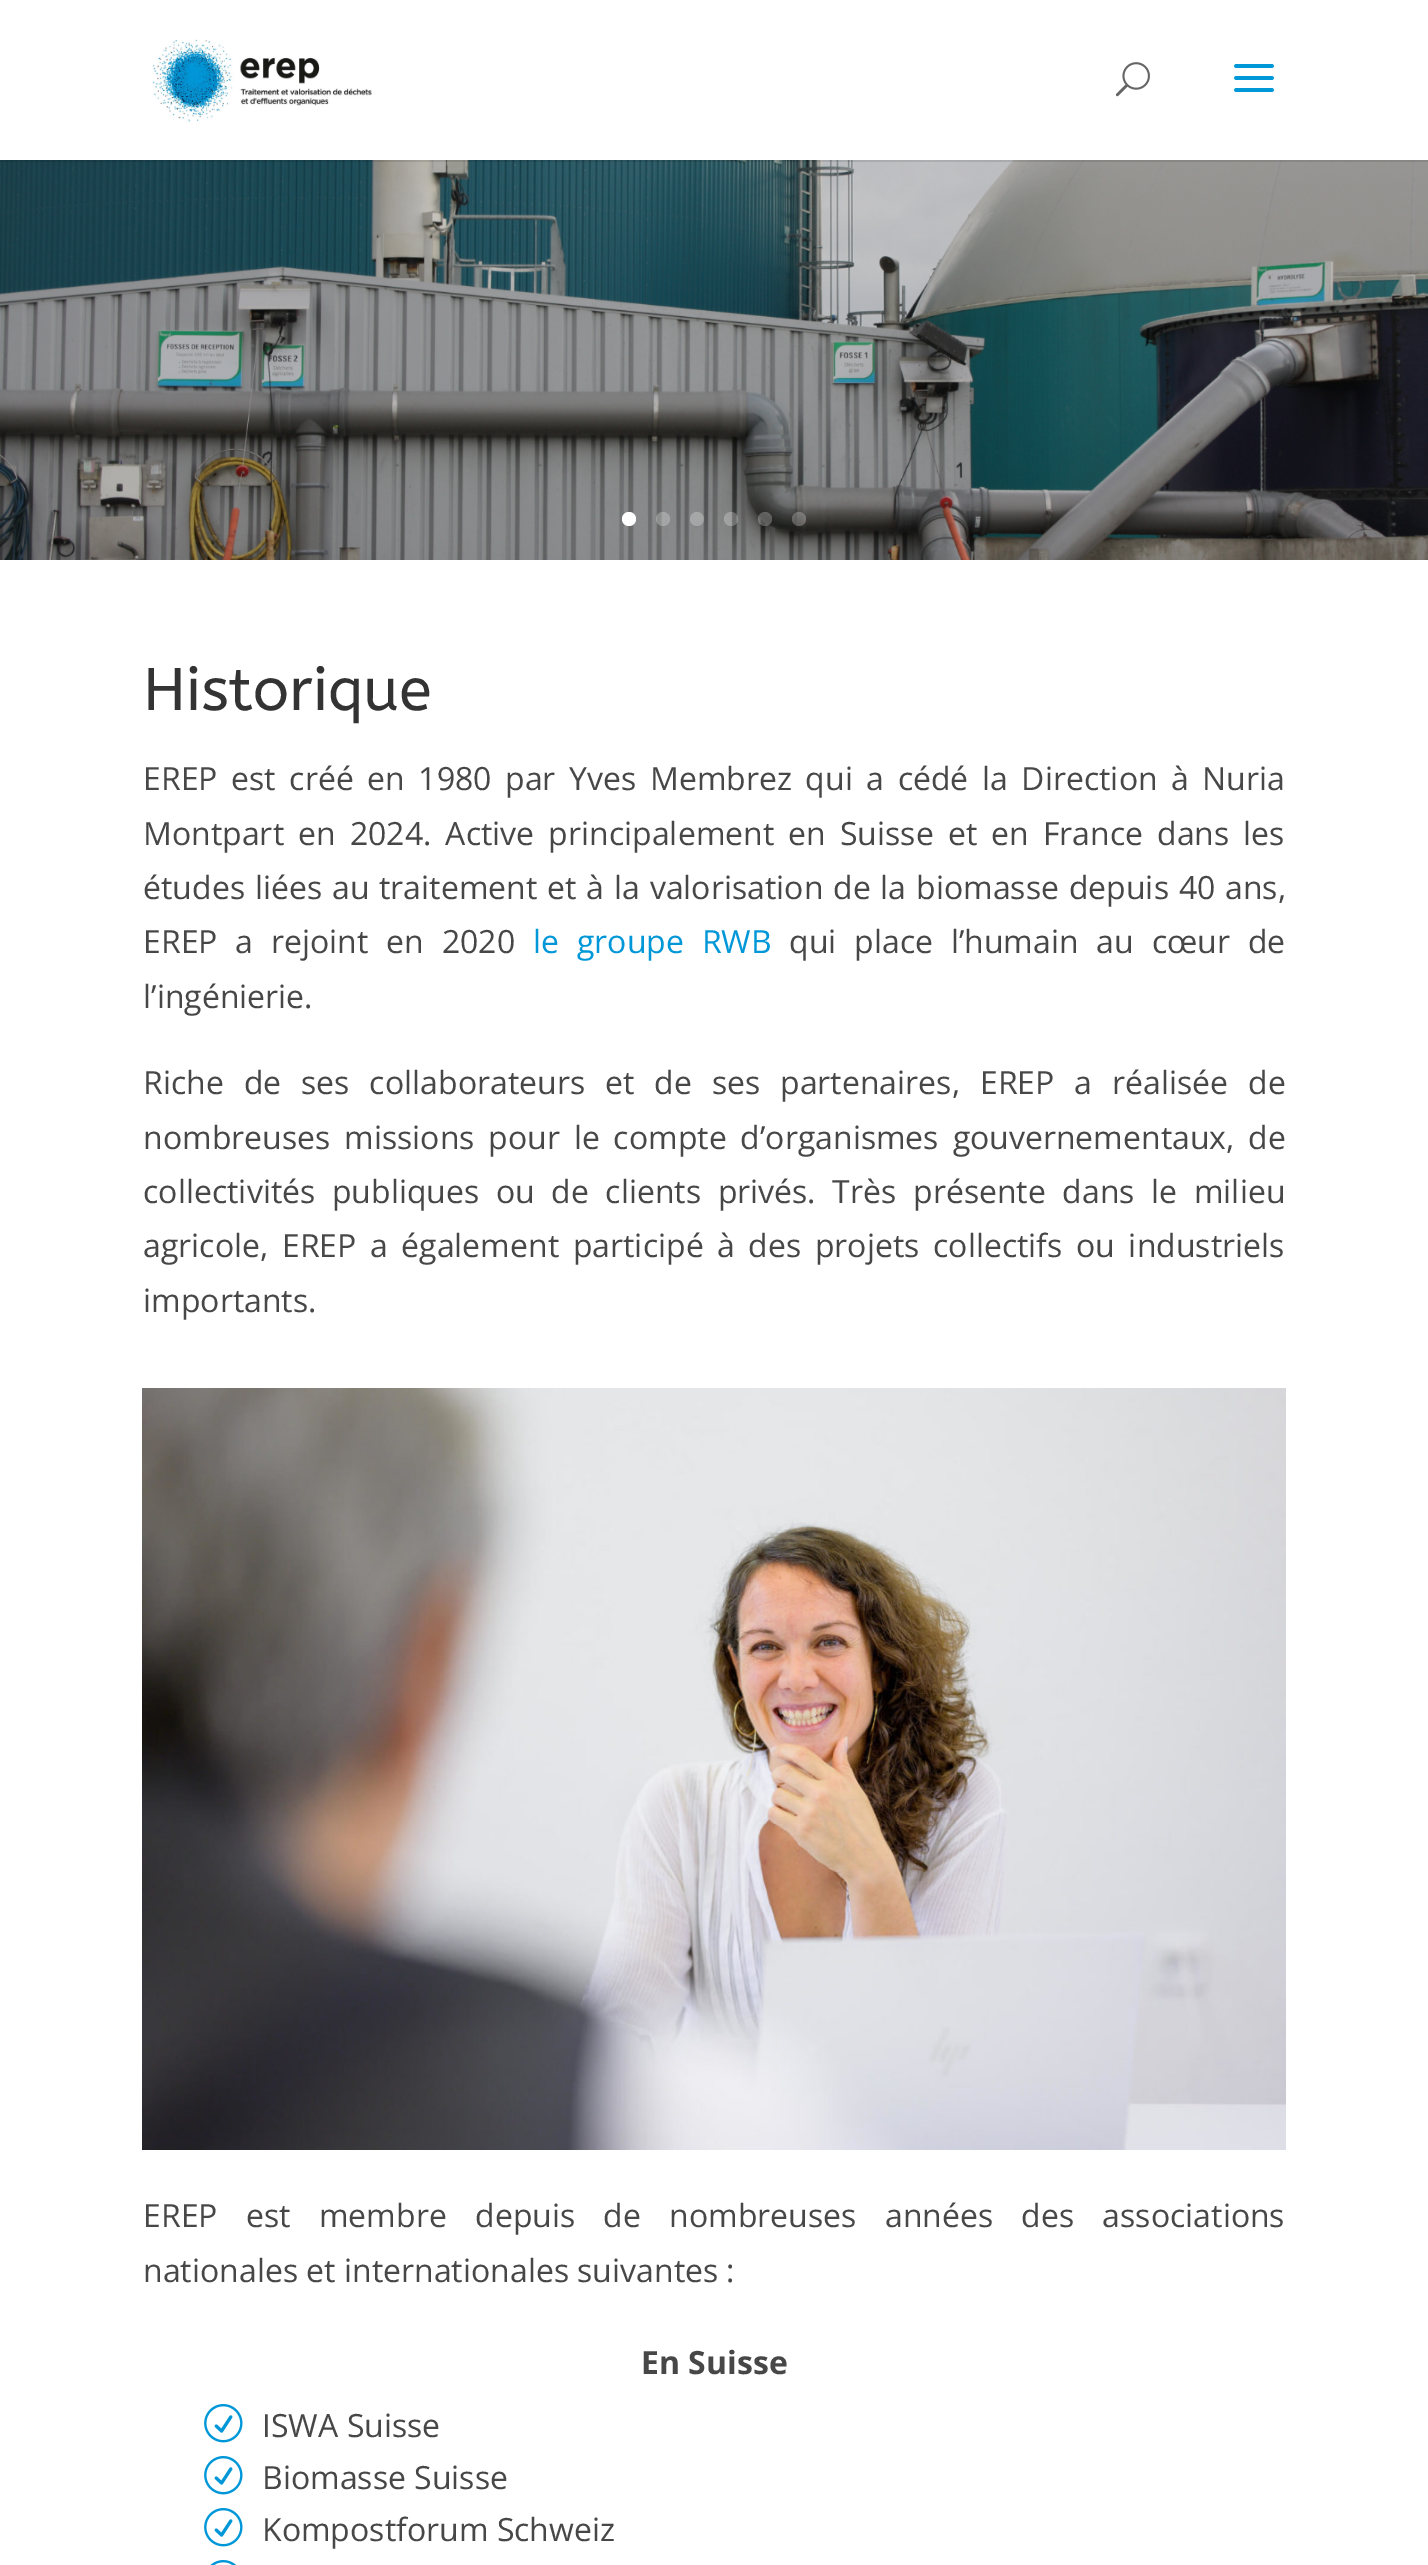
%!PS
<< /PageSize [1428 2565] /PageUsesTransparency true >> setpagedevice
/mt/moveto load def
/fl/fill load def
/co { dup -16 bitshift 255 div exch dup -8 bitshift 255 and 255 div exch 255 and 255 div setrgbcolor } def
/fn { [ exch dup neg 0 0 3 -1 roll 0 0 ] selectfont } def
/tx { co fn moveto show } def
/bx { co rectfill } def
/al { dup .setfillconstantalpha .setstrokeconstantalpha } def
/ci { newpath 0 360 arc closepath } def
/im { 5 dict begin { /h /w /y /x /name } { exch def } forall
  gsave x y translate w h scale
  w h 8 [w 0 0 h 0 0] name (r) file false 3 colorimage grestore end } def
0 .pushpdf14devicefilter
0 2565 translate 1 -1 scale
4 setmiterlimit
0 0 1428 2565 16#FFFFFF bx
(media/4.raw) 0 160 1428 400 im
0.1 al
0 160 1428 2 16#000000 bx
1 al
(media/1.raw) 152 39 220 83 im
(media/2.raw) 1115 62 35 35 im
(media/3.raw) 1234 64 40 28 im
16#FFFFFF co
629 519 7 ci fl
0.25 al
663 519 7 ci fl
697 519 7 ci fl
731 519 7 ci fl
765 519 7 ci fl
799 519 7 ci fl
1 al
(media/5.raw) 142 1388 1144 762 im
(media/6.raw) 204 2404 39 39 im
(media/6.raw) 204 2456 39 39 im
(media/6.raw) 204 2508 39 39 im
(media/7.raw) 210 2560 26 5 im
(Historique) 143 710 /ABeeZee-Regular 60 16#333333 tx
/OpenSans-Regular 32 fn
16#474747 co
143 790 mt 5.25 0 32 (EREP est créé en 1980 par Yves Membrez qui a cédé la Direction à Nuria) widthshow
143 845 mt 5.75 0 32 (Montpart en 2024. Active principalement en Suisse et en France dans les) widthshow
143 899 mt 1.5 0 32 (études liées au traitement et à la valorisation de la biomasse depuis 40 ans,) widthshow
143 953 mt 9.5 0 32 (EREP a rejoint en 2020) widthshow
16#0097D8 co
533 953 mt 9.5 0 32 (le groupe RWB) widthshow
16#474747 co
789 953 mt 9.5 0 32 (qui place l’humain au cœur de) widthshow
(l’ingénierie.) 143 1008 /OpenSans-Regular 32 16#474747 tx
143 1094 mt 11.6 0 32 (Riche de ses collaborateurs et de ses partenaires, EREP a réalisée de) widthshow
143 1149 mt 5.5 0 32 (nombreuses missions pour le compte d’organismes gouvernementaux, de) widthshow
143 1203 mt 8.25 0 32 (collectivités publiques ou de clients privés. Très présente dans le milieu) widthshow
143 1257 mt 5.25 0 32 (agricole, EREP a également participé à des projets collectifs ou industriels) widthshow
(importants.) 143 1312 /OpenSans-Regular 32 16#474747 tx
143 2227 mt 20 0 32 (EREP est membre depuis de nombreuses années des associations) widthshow
(nationales et internationales suivantes :) 143 2282 /OpenSans-Regular 32 16#474747 tx
(En Suisse) 641 2374 /OpenSans-Bold 32 16#474747 tx
(ISWA Suisse) 262 2437 /OpenSans-Regular 32 16#474747 tx
(Biomasse Suisse) 262 2489 /OpenSans-Regular 32 16#474747 tx
(Kompostforum Schweiz) 262 2541 /OpenSans-Regular 32 16#474747 tx
.poppdf14devicefilter showpage
